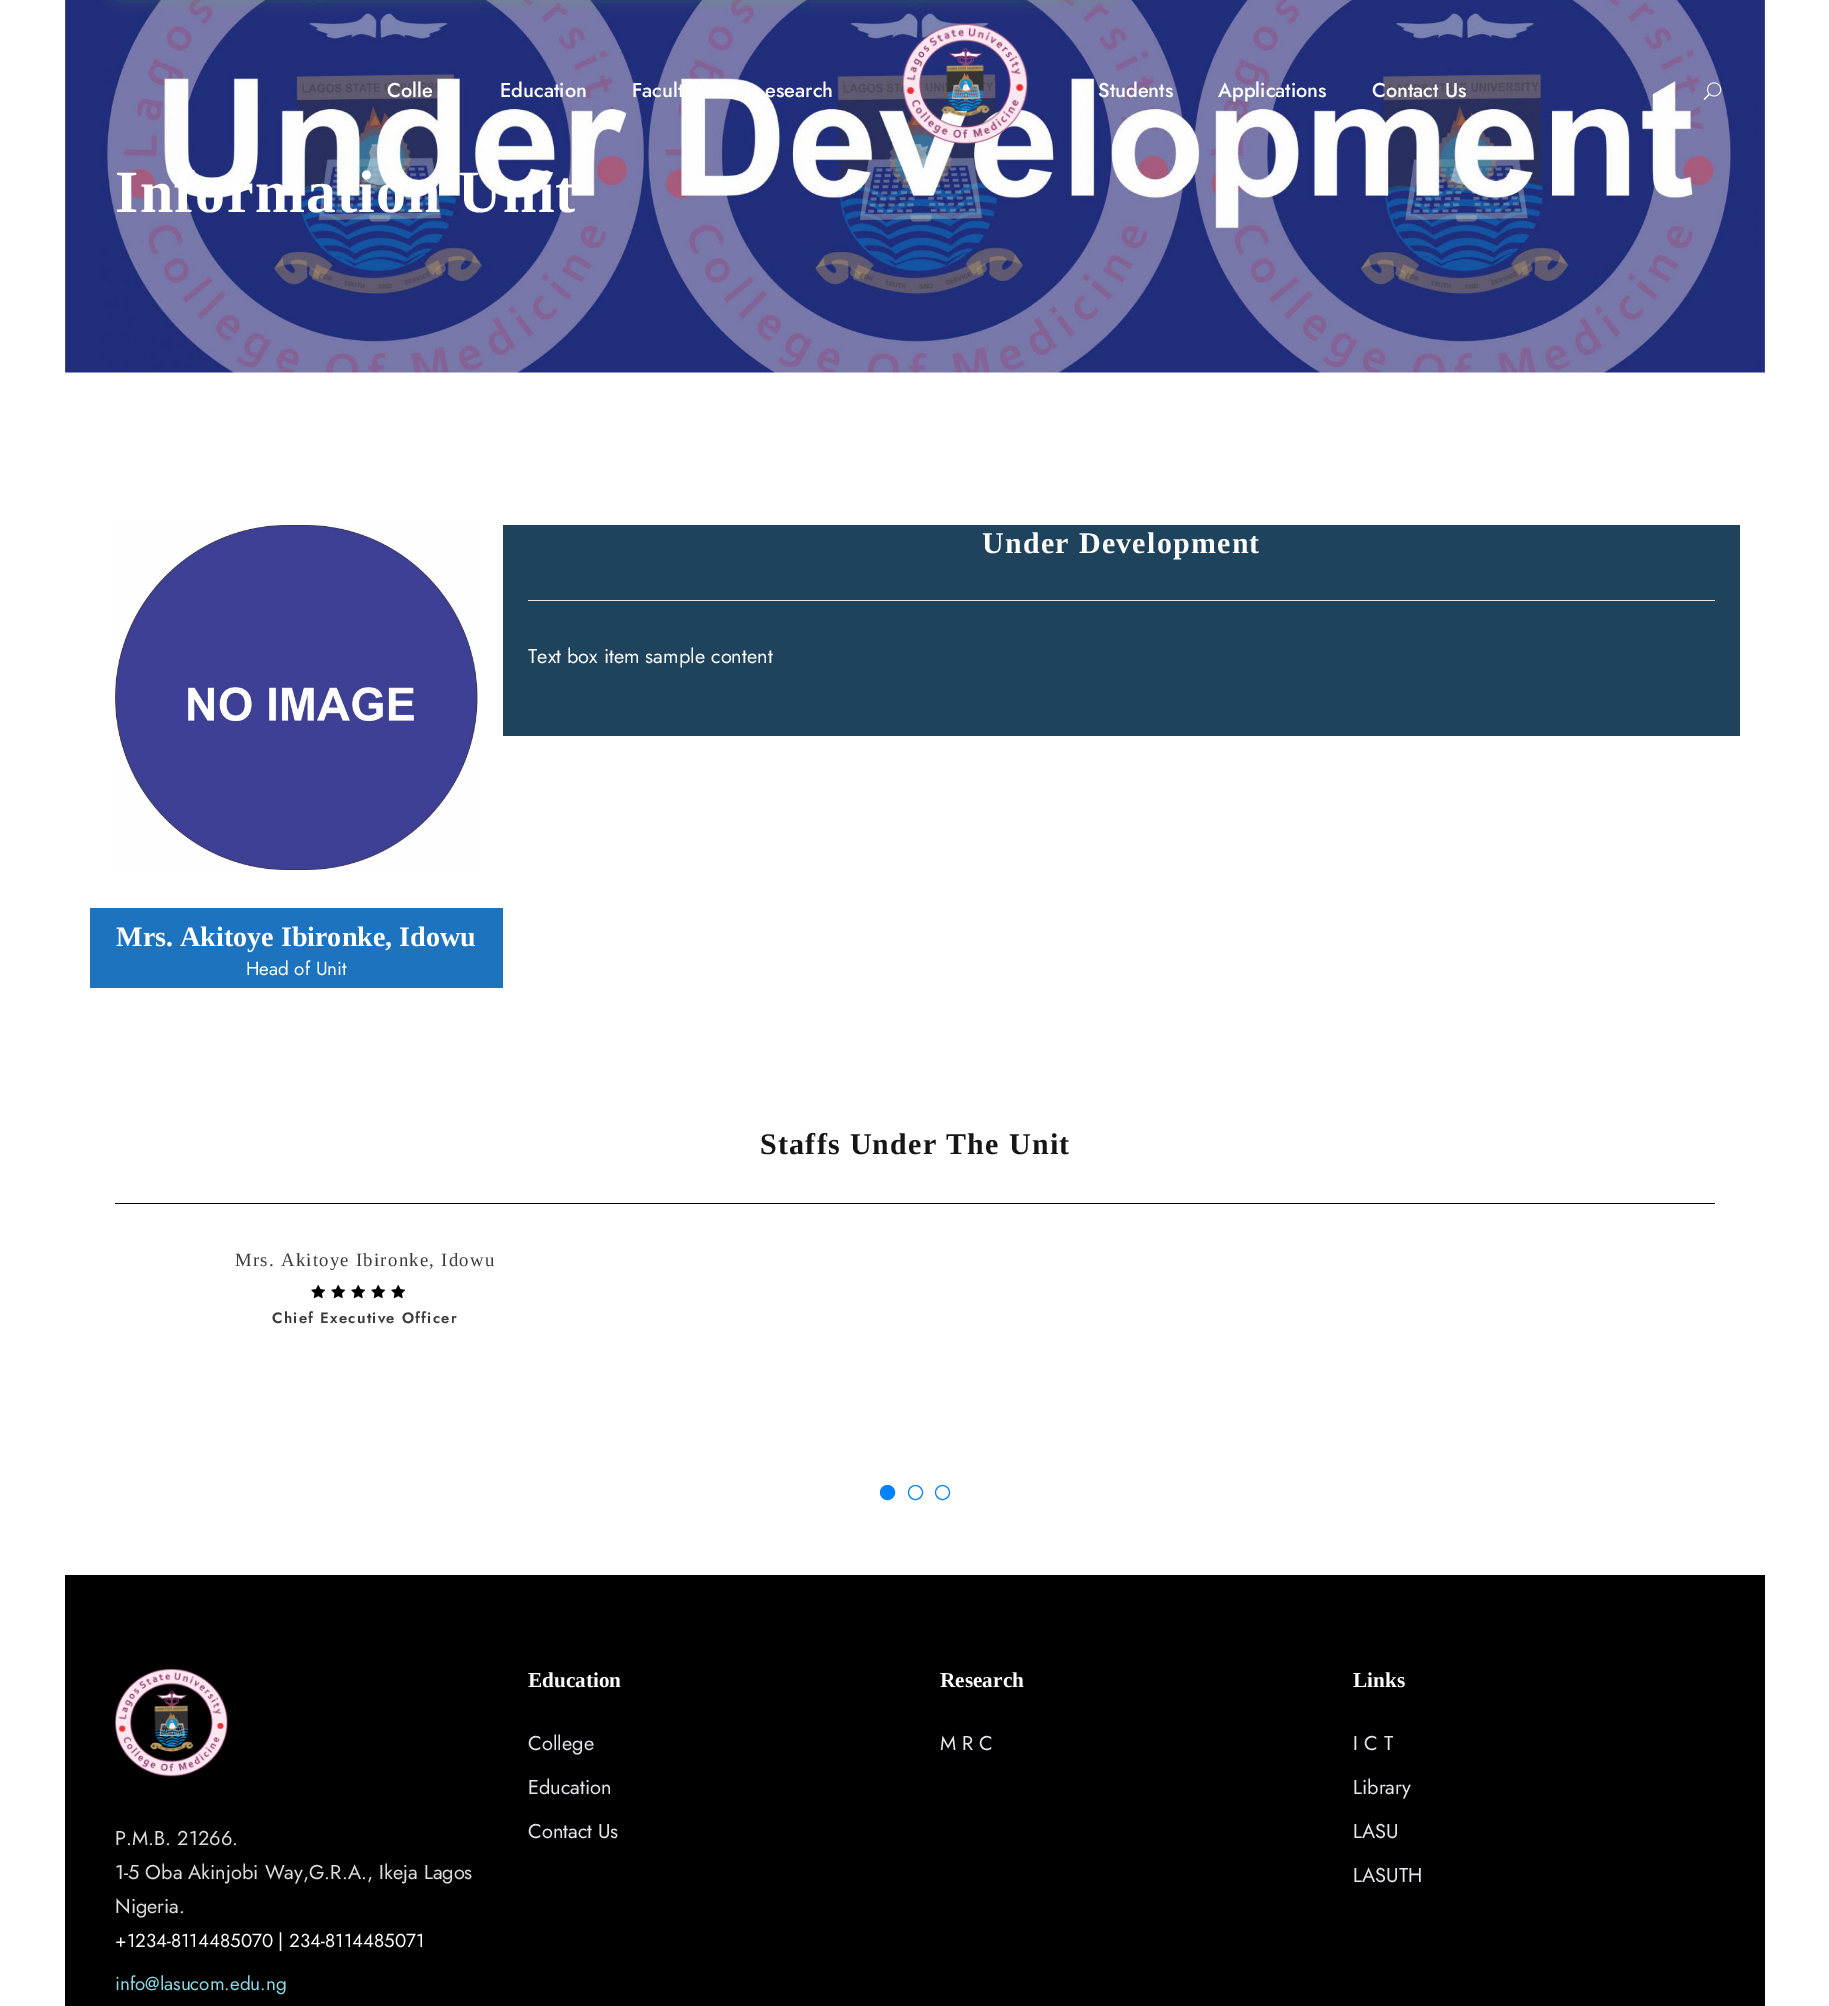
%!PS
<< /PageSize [1829 2006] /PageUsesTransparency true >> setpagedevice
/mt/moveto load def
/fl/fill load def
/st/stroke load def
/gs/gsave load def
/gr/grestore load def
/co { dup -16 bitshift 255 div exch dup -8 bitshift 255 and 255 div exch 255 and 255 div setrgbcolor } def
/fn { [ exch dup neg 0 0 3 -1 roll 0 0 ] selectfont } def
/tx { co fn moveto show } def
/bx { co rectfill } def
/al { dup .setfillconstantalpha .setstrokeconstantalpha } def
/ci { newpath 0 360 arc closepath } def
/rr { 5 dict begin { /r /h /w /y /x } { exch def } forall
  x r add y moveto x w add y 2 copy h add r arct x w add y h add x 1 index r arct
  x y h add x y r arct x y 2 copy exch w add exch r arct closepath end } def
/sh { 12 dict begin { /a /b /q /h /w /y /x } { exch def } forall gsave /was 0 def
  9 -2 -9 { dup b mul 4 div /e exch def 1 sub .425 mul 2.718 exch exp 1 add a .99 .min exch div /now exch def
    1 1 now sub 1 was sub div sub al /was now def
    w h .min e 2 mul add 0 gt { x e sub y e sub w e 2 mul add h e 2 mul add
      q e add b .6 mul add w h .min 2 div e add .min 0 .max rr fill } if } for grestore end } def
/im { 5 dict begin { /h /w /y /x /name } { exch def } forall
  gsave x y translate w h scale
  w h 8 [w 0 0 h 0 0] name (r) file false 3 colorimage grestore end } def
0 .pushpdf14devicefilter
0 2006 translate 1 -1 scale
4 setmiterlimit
0 0 1829 2006 16#FFFFFF bx
(media/3.raw) 65 0 1700 373 im
16#53B039 co
118 -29 192 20 0 9.5 .75 sh
318 -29 192 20 0 9.5 .75 sh
519 -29 191 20 0 9.5 .75 sh
719 -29 192 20 0 9.5 .75 sh
919 -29 192 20 0 9.5 .75 sh
(media/1.raw) 902 23 126 121 im
(media/2.raw) 1703 82 19 18 im
503 525 1237 211 16#1F425D bx
528 600 1187 1 16#E6E6E6 bx
(media/4.raw) 115 525 363 345 im
90 908 413 80 16#1E73BE bx
115 1203 1600 1 16#000000 bx
(media/5.raw) 311 1285 15 14 im
(media/5.raw) 331 1285 15 14 im
(media/5.raw) 351 1285 15 14 im
(media/5.raw) 371 1285 15 14 im
(media/5.raw) 391 1285 15 14 im
16#0082FA co
887.5 1492.5 7 ci gs fl gr
st
915.5 1492.5 7 ci st
942.5 1492.5 7 ci st
65 1575 1700 431 16#000000 bx
(media/6.raw) 115 1668 113 109 im
(Colle) 387 97 /Jost-Medium 20 16#FFFFFF tx
(Education) 500 97 /Jost-Medium 20 16#FFFFFF tx
(Facult) 632 97 /Jost-Medium 20 16#FFFFFF tx
(esearch) 765 97 /Jost-Medium 20 16#FFFFFF tx
(Students) 1098 97 /Jost-Medium 20 16#FFFFFF tx
(Applications) 1218 97 /Jost-Medium 20 16#FFFFFF tx
(Contact Us) 1372 97 /Jost-Medium 20 16#FFFFFF tx
/LiberationSerif-Bold 60 fn
115 212 mt 1.25 0 (Information Unit) ashow
/LiberationSerif-Bold 30 fn
982 553 mt 1.25 0 (Under Development) ashow
(Text box item sample content) 528 663 /Jost-Regular 20 16#FFFFFF tx
(Mrs. Akitoye Ibironke, Idowu) 116 946 /LiberationSerif-Bold 28.1 16#FFFFFF tx
(Head of Unit) 246 975 /Jost-Regular 18.75 16#FFFFFF tx
/LiberationSerif-Bold 30 fn
16#161616 co
760 1154 mt 1.25 0 (Staffs Under The Unit) ashow
/LiberationSerif-Regular 18.75 fn
16#3B3B3B co
235 1266 mt 1.25 0 (Mrs. Akitoye Ibironke, Idowu) ashow
/Jost-SemiBold 15 fn
272 1323 mt 1.25 0 (Chief Executive Officer) ashow
(Education) 528 1687 /LiberationSerif-Bold 21.25 16#FFFFFF tx
(College) 528 1750 /Jost-Regular 20 16#E3E6EA tx
(Education) 528 1794 /Jost-Regular 20 16#E3E6EA tx
(Contact Us) 528 1838 /Jost-Regular 20 16#E3E6EA tx
(Research) 940 1687 /LiberationSerif-Bold 21.25 16#FFFFFF tx
(M R C) 940 1750 /Jost-Regular 20 16#E3E6EA tx
(Links) 1353 1687 /LiberationSerif-Bold 21.25 16#FFFFFF tx
(I C T) 1353 1750 /Jost-Regular 20 16#E3E6EA tx
(Library) 1353 1794 /Jost-Regular 20 16#E3E6EA tx
(LASU) 1353 1838 /Jost-Regular 20 16#E3E6EA tx
(LASUTH) 1353 1882 /Jost-Regular 20 16#E3E6EA tx
(P.M.B. 21266.) 115 1845 /Jost-Regular 20 16#DDDDDD tx
(1-5 Oba Akinjobi Way,G.R.A., Ikeja Lagos) 115 1879 /Jost-Regular 20 16#DDDDDD tx
(Nigeria.) 115 1913 /Jost-Regular 20 16#DDDDDD tx
(+1234-8114485070 | 234-8114485071) 115 1947 /Jost-Regular 18.75 16#FFFFFF tx
(info@lasucom.edu.ng) 115 1990 /Jost-Regular 18.75 16#8DD7E5 tx
.poppdf14devicefilter showpage
